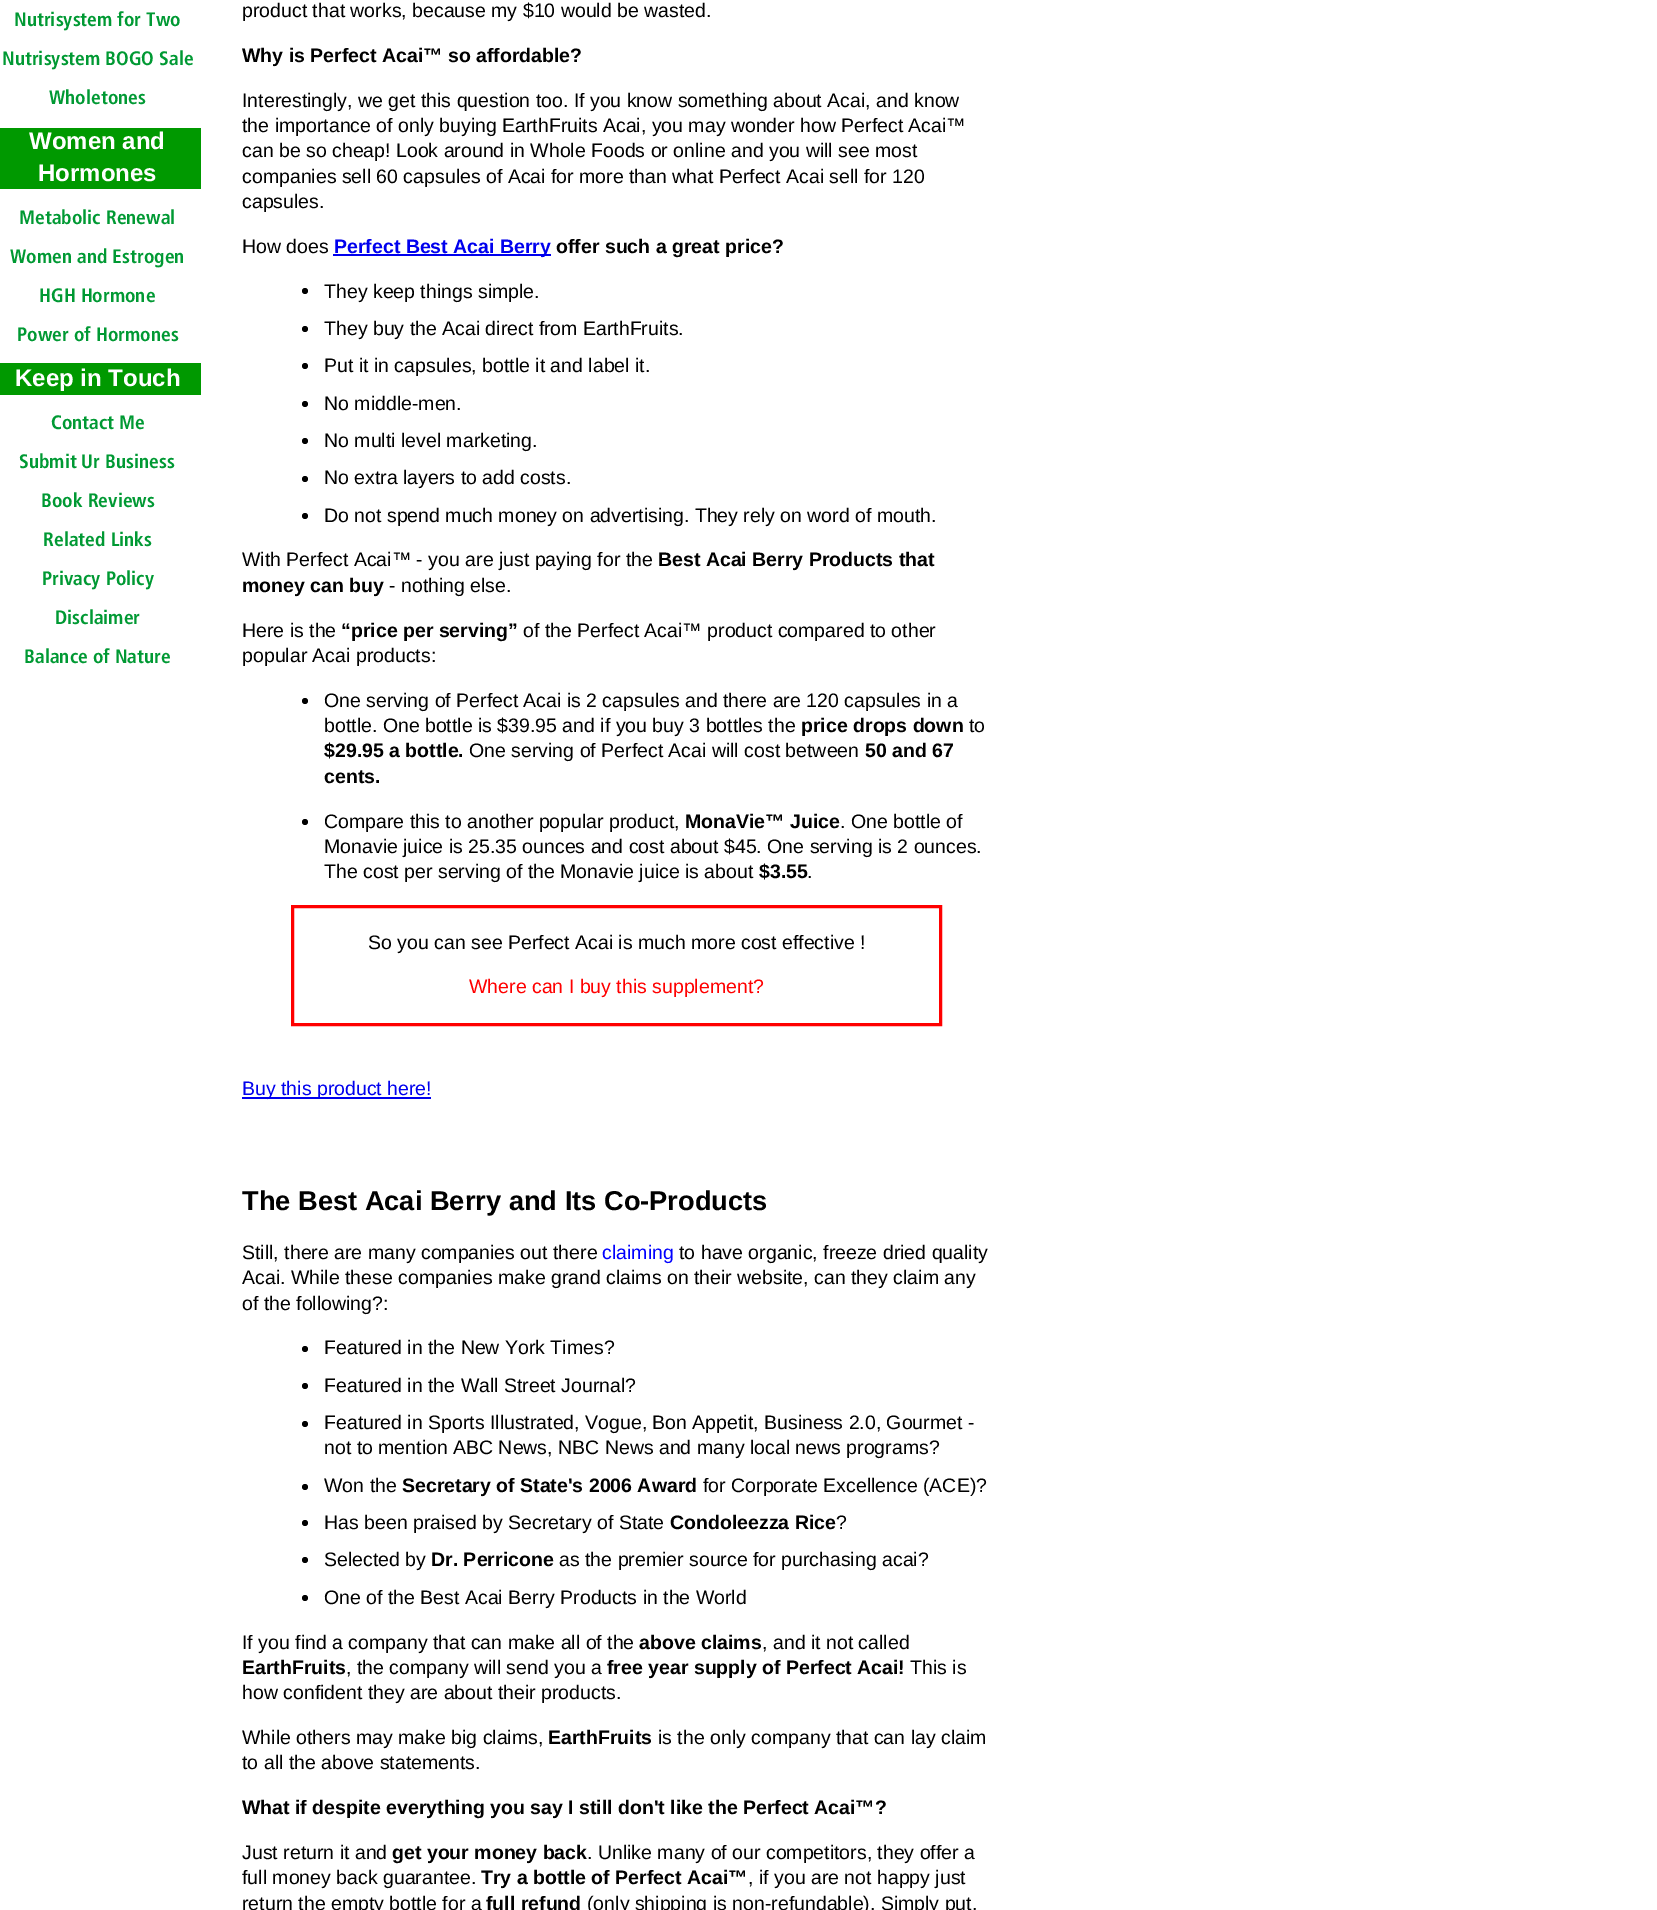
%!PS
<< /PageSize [1657 1910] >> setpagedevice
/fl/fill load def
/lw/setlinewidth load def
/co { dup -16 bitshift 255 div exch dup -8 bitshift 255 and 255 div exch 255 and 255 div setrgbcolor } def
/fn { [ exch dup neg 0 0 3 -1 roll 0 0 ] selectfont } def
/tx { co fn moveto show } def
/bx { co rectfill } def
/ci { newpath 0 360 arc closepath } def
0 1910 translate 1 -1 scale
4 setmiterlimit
0 0 1657 1910 16#FFFFFF bx
0 128 201 61 16#009900 bx
0 363 201 32 16#009900 bx
333 254 218 2 16#0000EE bx
16#000000 co
305 291 3 ci fl
305 329 3 ci fl
305 366 3 ci fl
305 404 3 ci fl
305 441 3 ci fl
305 479 3 ci fl
305 516 3 ci fl
305 701 3 ci fl
305 822 3 ci fl
16#FF0000 co
3 lw
292.5 906.5 648 118 rectstroke
242 1097 189 2 16#0000EE bx
16#000000 co
305 1349 3 ci fl
305 1386 3 ci fl
305 1424 3 ci fl
305 1487 3 ci fl
305 1523 3 ci fl
305 1560 3 ci fl
305 1598 3 ci fl
(Nutrisystem for Two) 14 26 /Frutiger-Regular 19.5 16#009933 tx
(Nutrisystem BOGO Sale) 2 65 /Frutiger-Regular 19.5 16#009933 tx
(Wholetones) 49 104 /Frutiger-Regular 19.5 16#009933 tx
(Women and) 29 149 /LiberationSans-Bold 24 16#FFFFFF tx
(Hormones) 38 181 /LiberationSans-Bold 24 16#FFFFFF tx
(Metabolic Renewal) 19 224 /Frutiger-Regular 19.5 16#009933 tx
(Women and Estrogen) 10 263 /Frutiger-Regular 19.5 16#009933 tx
(HGH Hormone) 39 302 /Frutiger-Regular 19.5 16#009933 tx
(Power of Hormones) 17 341 /Frutiger-Regular 19.5 16#009933 tx
(Keep in Touch) 15 386 /LiberationSans-Bold 24 16#FFFFFF tx
(Contact Me) 51 429 /Frutiger-Regular 19.5 16#009933 tx
(Submit Ur Business) 19 468 /Frutiger-Regular 19.5 16#009933 tx
(Book Reviews) 41 507 /Frutiger-Regular 19.5 16#009933 tx
(Related Links) 43 546 /Frutiger-Regular 19.5 16#009933 tx
(Privacy Policy) 42 585 /Frutiger-Regular 19.5 16#009933 tx
(Disclaimer) 55 624 /Frutiger-Regular 19.5 16#009933 tx
(Balance of Nature) 24 663 /Frutiger-Regular 19.5 16#009933 tx
(product that works, because my $10 would be wasted.) 242 17 /LiberationSans-Regular 19.5 16#000000 tx
(Why is Perfect Acai™ so affordable?) 242 62 /LiberationSans-Bold 19.5 16#000000 tx
(Interestingly, we get this question too. If you know something about Acai, and know) 242 107 /LiberationSans-Regular 19.5 16#000000 tx
(the importance of only buying EarthFruits Acai, you may wonder how Perfect Acai™) 242 132 /LiberationSans-Regular 19.5 16#000000 tx
(can be so cheap! Look around in Whole Foods or online and you will see most) 242 157 /LiberationSans-Regular 19.5 16#000000 tx
(companies sell 60 capsules of Acai for more than what Perfect Acai sell for 120) 242 183 /LiberationSans-Regular 19.5 16#000000 tx
(capsules.) 242 208 /LiberationSans-Regular 19.5 16#000000 tx
(How does) 242 253 /LiberationSans-Regular 19.5 16#000000 tx
(Perfect Best Acai Berry) 334 253 /LiberationSans-Bold 19.5 16#0000EE tx
(offer such a great price?) 556 253 /LiberationSans-Bold 19.5 16#000000 tx
(They keep things simple.) 324 298 /LiberationSans-Regular 19.5 16#000000 tx
(They buy the Acai direct from EarthFruits.) 324 335 /LiberationSans-Regular 19.5 16#000000 tx
(Put it in capsules, bottle it and label it.) 324 372 /LiberationSans-Regular 19.5 16#000000 tx
(No middle-men.) 324 410 /LiberationSans-Regular 19.5 16#000000 tx
(No multi level marketing.) 324 447 /LiberationSans-Regular 19.5 16#000000 tx
(No extra layers to add costs.) 324 484 /LiberationSans-Regular 19.5 16#000000 tx
(Do not spend much money on advertising. They rely on word of mouth.) 324 522 /LiberationSans-Regular 19.5 16#000000 tx
(With Perfect Acai™ - you are just paying for the) 242 566 /LiberationSans-Regular 19.5 16#000000 tx
(Best Acai Berry Products that) 658 566 /LiberationSans-Bold 19.5 16#000000 tx
(money can buy) 242 592 /LiberationSans-Bold 19.5 16#000000 tx
(- nothing else.) 389 592 /LiberationSans-Regular 19.5 16#000000 tx
(Here is the) 242 637 /LiberationSans-Regular 19.5 16#000000 tx
(“price per serving”) 341 637 /LiberationSans-Bold 19.5 16#000000 tx
(of the Perfect Acai™ product compared to other) 523 637 /LiberationSans-Regular 19.5 16#000000 tx
(popular Acai products:) 242 662 /LiberationSans-Regular 19.5 16#000000 tx
(One serving of Perfect Acai is 2 capsules and there are 120 capsules in a) 324 707 /LiberationSans-Regular 19.5 16#000000 tx
(bottle. One bottle is $39.95 and if you buy 3 bottles the) 324 732 /LiberationSans-Regular 19.5 16#000000 tx
(price drops down) 801 732 /LiberationSans-Bold 19.5 16#000000 tx
(to) 969 732 /LiberationSans-Regular 19.5 16#000000 tx
($29.95 a bottle.) 324 757 /LiberationSans-Bold 19.5 16#000000 tx
(One serving of Perfect Acai will cost between) 469 757 /LiberationSans-Regular 19.5 16#000000 tx
(50 and 67) 865 757 /LiberationSans-Bold 19.5 16#000000 tx
(cents.) 324 783 /LiberationSans-Bold 19.5 16#000000 tx
(Compare this to another popular product,) 324 828 /LiberationSans-Regular 19.5 16#000000 tx
(MonaVie™ Juice) 685 828 /LiberationSans-Bold 19.5 16#000000 tx
(. One bottle of) 840 828 /LiberationSans-Regular 19.5 16#000000 tx
(Monavie juice is 25.35 ounces and cost about $45. One serving is 2 ounces.) 324 853 /LiberationSans-Regular 19.5 16#000000 tx
(The cost per serving of the Monavie juice is about) 324 878 /LiberationSans-Regular 19.5 16#000000 tx
($3.55) 759 878 /LiberationSans-Bold 19.5 16#000000 tx
(.) 807 878 /LiberationSans-Regular 19.5 16#000000 tx
(So you can see Perfect Acai is much more cost effective !) 368 949 /LiberationSans-Regular 19.5 16#000000 tx
(Where can I buy this supplement?) 469 993 /LiberationSans-Regular 19.5 16#FF0000 tx
(Buy this product here!) 242 1095 /LiberationSans-Regular 19.5 16#0000EE tx
(The Best Acai Berry and Its Co-Products) 242 1210 /LiberationSans-Bold 27.25 16#000000 tx
(Still, there are many companies out there) 242 1259 /LiberationSans-Regular 19.5 16#000000 tx
(claiming) 602 1259 /LiberationSans-Regular 19.5 16#0000FF tx
(to have organic, freeze dried quality) 679 1259 /LiberationSans-Regular 19.5 16#000000 tx
(Acai. While these companies make grand claims on their website, can they claim any) 242 1284 /LiberationSans-Regular 19.5 16#000000 tx
(of the following?:) 242 1310 /LiberationSans-Regular 19.5 16#000000 tx
(Featured in the New York Times?) 324 1354 /LiberationSans-Regular 19.5 16#000000 tx
(Featured in the Wall Street Journal?) 324 1392 /LiberationSans-Regular 19.5 16#000000 tx
(Featured in Sports Illustrated, Vogue, Bon Appetit, Business 2.0, Gourmet -) 324 1429 /LiberationSans-Regular 19.5 16#000000 tx
(not to mention ABC News, NBC News and many local news programs?) 324 1454 /LiberationSans-Regular 19.5 16#000000 tx
(Won the) 324 1492 /LiberationSans-Regular 19.5 16#000000 tx
(Secretary of State's 2006 Award) 402 1492 /LiberationSans-Bold 19.5 16#000000 tx
(for Corporate Excellence \(ACE\)?) 703 1492 /LiberationSans-Regular 19.5 16#000000 tx
(Has been praised by Secretary of State) 324 1529 /LiberationSans-Regular 19.5 16#000000 tx
(Condoleezza Rice) 670 1529 /LiberationSans-Bold 19.5 16#000000 tx
(?) 836 1529 /LiberationSans-Regular 19.5 16#000000 tx
(Selected by) 324 1566 /LiberationSans-Regular 19.5 16#000000 tx
(Dr. Perricone) 431 1566 /LiberationSans-Bold 19.5 16#000000 tx
(as the premier source for purchasing acai?) 559 1566 /LiberationSans-Regular 19.5 16#000000 tx
(One of the Best Acai Berry Products in the World) 324 1604 /LiberationSans-Regular 19.5 16#000000 tx
(If you find a company that can make all of the) 242 1649 /LiberationSans-Regular 19.5 16#000000 tx
(above claims) 639 1649 /LiberationSans-Bold 19.5 16#000000 tx
(, and it not called) 762 1649 /LiberationSans-Regular 19.5 16#000000 tx
(EarthFruits) 242 1674 /LiberationSans-Bold 19.5 16#000000 tx
(, the company will send you a) 346 1674 /LiberationSans-Regular 19.5 16#000000 tx
(free year supply of Perfect Acai!) 607 1674 /LiberationSans-Bold 19.5 16#000000 tx
(This is) 910 1674 /LiberationSans-Regular 19.5 16#000000 tx
(how confident they are about their products.) 242 1699 /LiberationSans-Regular 19.5 16#000000 tx
(While others may make big claims,) 242 1744 /LiberationSans-Regular 19.5 16#000000 tx
(EarthFruits) 548 1744 /LiberationSans-Bold 19.5 16#000000 tx
(is the only company that can lay claim) 658 1744 /LiberationSans-Regular 19.5 16#000000 tx
(to all the above statements.) 242 1769 /LiberationSans-Regular 19.5 16#000000 tx
(What if despite everything you say I still don't like the Perfect Acai™?) 242 1814 /LiberationSans-Bold 19.5 16#000000 tx
(Just return it and) 242 1859 /LiberationSans-Regular 19.5 16#000000 tx
(get your money back) 392 1859 /LiberationSans-Bold 19.5 16#000000 tx
(. Unlike many of our competitors, they offer a) 587 1859 /LiberationSans-Regular 19.5 16#000000 tx
(full money back guarantee.) 242 1884 /LiberationSans-Regular 19.5 16#000000 tx
(Try a bottle of Perfect Acai™) 481 1884 /LiberationSans-Bold 19.5 16#000000 tx
(, if you are not happy just) 748 1884 /LiberationSans-Regular 19.5 16#000000 tx
(return the empty bottle for a) 242 1910 /LiberationSans-Regular 19.5 16#000000 tx
(full refund) 486 1910 /LiberationSans-Bold 19.5 16#000000 tx
(\(only shipping is non-refundable\). Simply put,) 587 1910 /LiberationSans-Regular 19.5 16#000000 tx
showpage
